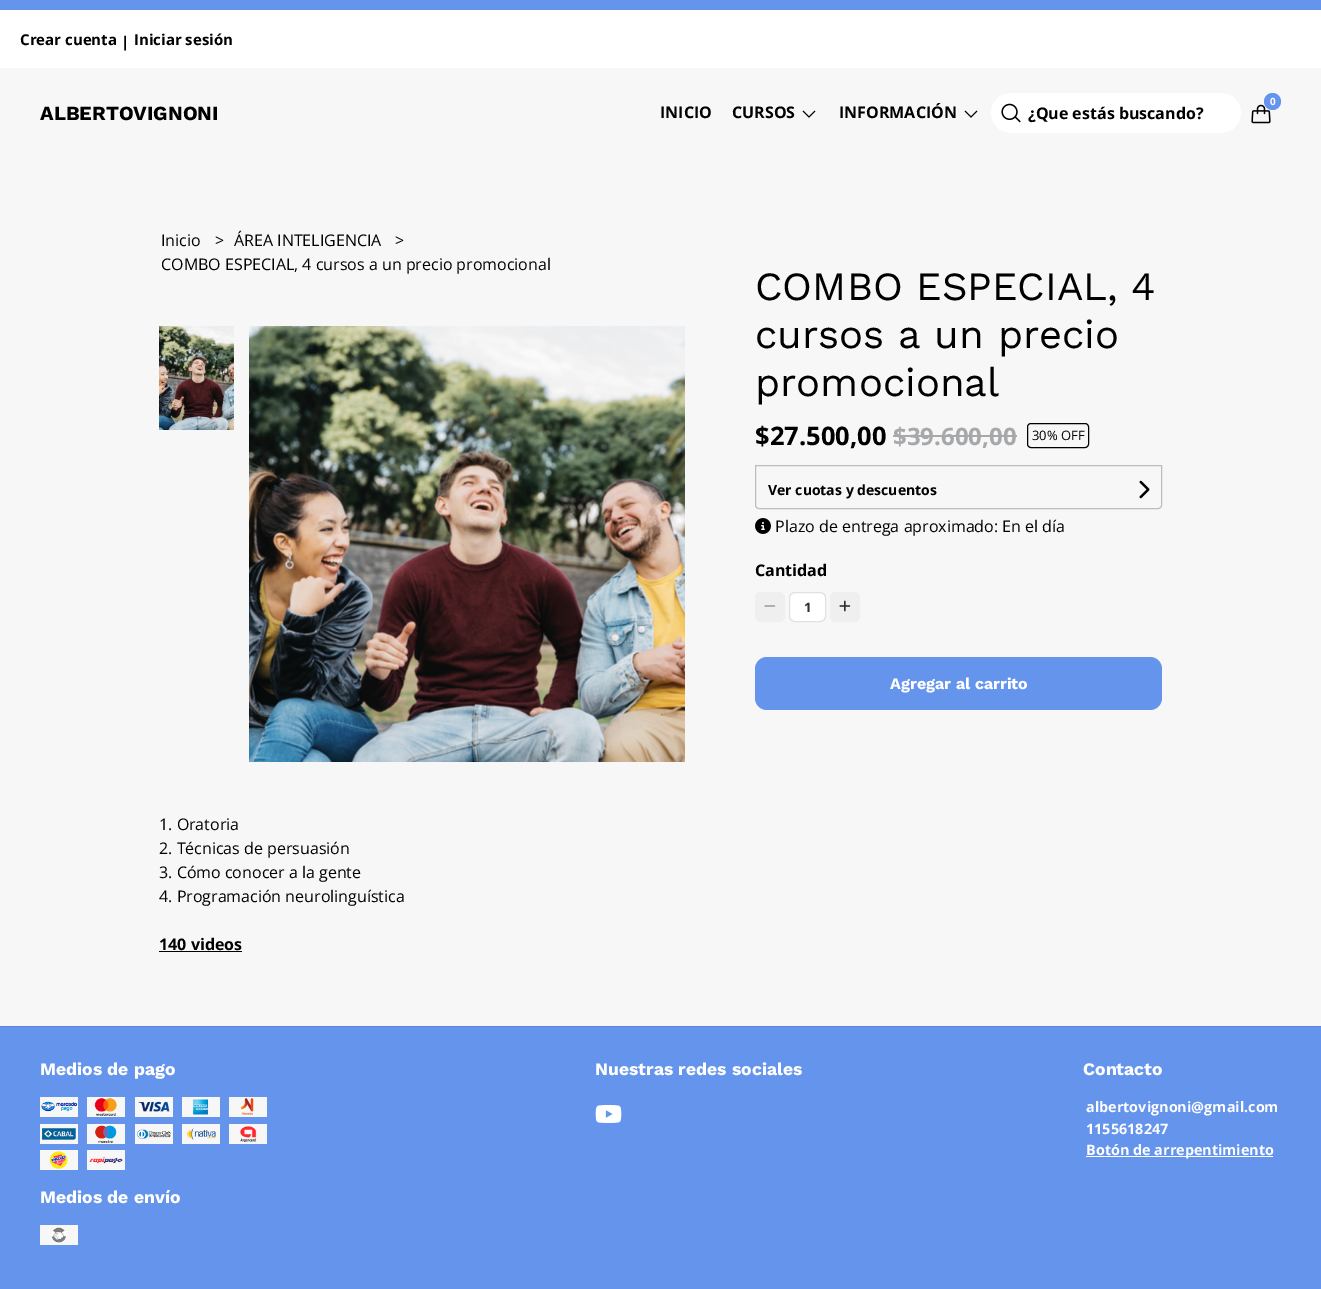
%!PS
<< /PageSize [1321 1289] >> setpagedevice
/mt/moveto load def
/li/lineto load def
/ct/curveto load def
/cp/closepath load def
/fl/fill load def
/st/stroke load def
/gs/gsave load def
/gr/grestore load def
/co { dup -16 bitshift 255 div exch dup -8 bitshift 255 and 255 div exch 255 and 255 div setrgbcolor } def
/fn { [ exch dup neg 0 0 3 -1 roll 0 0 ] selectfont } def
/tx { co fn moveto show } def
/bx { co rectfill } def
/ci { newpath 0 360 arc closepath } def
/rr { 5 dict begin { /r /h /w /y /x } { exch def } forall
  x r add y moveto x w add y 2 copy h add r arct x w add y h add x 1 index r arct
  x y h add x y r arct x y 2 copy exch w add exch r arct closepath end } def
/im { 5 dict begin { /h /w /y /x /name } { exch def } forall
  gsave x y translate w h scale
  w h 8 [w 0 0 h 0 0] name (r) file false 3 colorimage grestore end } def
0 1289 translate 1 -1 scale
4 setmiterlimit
0 0 1321 1289 16#F7F7F7 bx
0 0 1321 10 16#6594EC bx
0 10 1321 58 16#FFFFFF bx
(media/1.raw) 1251 104 20 20 im
16#6594EC co
1272.5 101.5 8.5 ci fl
16#000000 co
815 111 mt 809 117 li 803 111 li st
977 111 mt 971 117 li 965 111 li st
16#FFFFFF co
991 93 250 40 20 rr fl
(media/2.raw) 1001 103 20 20 im
(media/3.raw) 159 326 75 104 im
(media/4.raw) 249 326 436 436 im
159 951 83 1 16#000000 bx
893 435 124 2 16#A7A8AA bx
16#000000 co
1027.5 423.5 61 24 3.5 rr st
16#BDBDBD co
755.5 465.5 mt 1161.5 465.5 li 1161.5 505 li 1161.5 507 1160 508.5 1158 508.5 ct 759 508.5 li 757 508.5 755.5 507 755.5 505 ct cp st
(media/5.raw) 1139 480 11 19 im
(media/6.raw) 755 518 16 16 im
16#EFEFEF co
755 592 30 30 6 rr fl
(media/7.raw) 764 605 12 2 im
16#FFFFFF co
789.5 592.5 36 29 5.5 rr gs fl gr
16#E1E1E1 co
st
16#EFEFEF co
830 592 30 30 6 rr fl
(media/8.raw) 839 600 12 12 im
16#6594EC co
755 657 407 53 12 rr fl
0 1027 1321 262 16#6594EC bx
0 1026 1321 1 16#5B85D4 bx
(media/9.raw) 40 1097 38 20 im
(media/10.raw) 87 1097 38 20 im
(media/11.raw) 135 1097 38 20 im
(media/12.raw) 182 1097 38 20 im
(media/13.raw) 229 1097 38 20 im
(media/14.raw) 40 1124 38 20 im
(media/15.raw) 87 1124 38 20 im
(media/16.raw) 135 1124 38 20 im
(media/17.raw) 182 1124 38 20 im
(media/18.raw) 229 1124 38 20 im
(media/19.raw) 40 1150 38 20 im
(media/20.raw) 87 1150 38 20 im
(media/21.raw) 40 1225 38 20 im
(media/22.raw) 595 1105 27 18 im
1086 1156 187 1 16#FFFFFF bx
(Crear cuenta) 20 45 /OpenSans-Bold 15 16#000000 tx
(|) 121 47 /OpenSans-Bold 15 16#000000 tx
(Iniciar sesión) 134 45 /OpenSans-Bold 15 16#000000 tx
(ALBERTOVIGNONI) 40 120 /WorkSans-Bold 20 16#000000 tx
(0) 1270 105 /OpenSans-Bold 10 16#FFFFFF tx
(INICIO) 660 118 /OpenSans-Bold 16 16#000000 tx
(CURSOS) 732 118 /OpenSans-Bold 16 16#000000 tx
(INFORMACIÓN) 839 118 /OpenSans-Bold 16 16#000000 tx
(¿Que estás buscando?) 1028 119 /OpenSans-Bold 16 16#000000 tx
(Inicio) 161 246 /OpenSans-Regular 16 16#000000 tx
(>) 215 246 /OpenSans-Regular 16 16#000000 tx
(ÁREA INTELIGENCIA) 234 246 /OpenSans-Regular 16 16#000000 tx
(>) 395 246 /OpenSans-Regular 16 16#000000 tx
(COMBO ESPECIAL, 4 cursos a un precio promocional) 161 270 /OpenSans-Regular 16 16#000000 tx
(1. Oratoria) 159 830 /OpenSans-Regular 16 16#000000 tx
(2. Técnicas de persuasión) 159 854 /OpenSans-Regular 16 16#000000 tx
(3. Cómo conocer a la gente) 159 878 /OpenSans-Regular 16 16#000000 tx
(4. Programación neurolinguística) 159 902 /OpenSans-Regular 16 16#000000 tx
(140 videos) 159 950 /OpenSans-Bold 16 16#000000 tx
(COMBO ESPECIAL, 4) 755 300 /WorkSans-Regular 40 16#000000 tx
(cursos a un precio) 755 348 /WorkSans-Regular 40 16#000000 tx
(promocional) 755 396 /WorkSans-Regular 40 16#000000 tx
($27.500,00) 755 445 /OpenSans-Bold 25.5 16#000000 tx
($39.600,00) 893 445 /OpenSans-Bold 24 16#A7A8AA tx
(30% OFF) 1032 440 /OpenSans-Regular 13 16#000000 tx
(Ver cuotas y descuentos) 768 495 /OpenSans-Bold 14 16#000000 tx
(Plazo de entrega aproximado: En el día) 775 532 /OpenSans-Regular 16 16#000000 tx
(Cantidad) 755 576 /OpenSans-Bold 16 16#000000 tx
(1) 804 612 /OpenSans-Bold 13 16#2E2E2E tx
(Agregar al carrito) 890 689 /WorkSans-Bold 16 16#FFFFFF tx
(Medios de pago) 40 1075 /WorkSans-Bold 17.6 16#FFFFFF tx
(Medios de envío) 40 1203 /WorkSans-Bold 17.6 16#FFFFFF tx
(Nuestras redes sociales) 595 1075 /WorkSans-Bold 17.6 16#FFFFFF tx
(Contacto) 1083 1075 /WorkSans-Bold 17.6 16#FFFFFF tx
(albertovignoni@gmail.com) 1086 1112 /OpenSans-Bold 14.4 16#FFFFFF tx
(1155618247) 1086 1134 /OpenSans-Bold 14.4 16#FFFFFF tx
(Botón de arrepentimiento) 1086 1155 /OpenSans-Bold 14.4 16#FFFFFF tx
showpage
